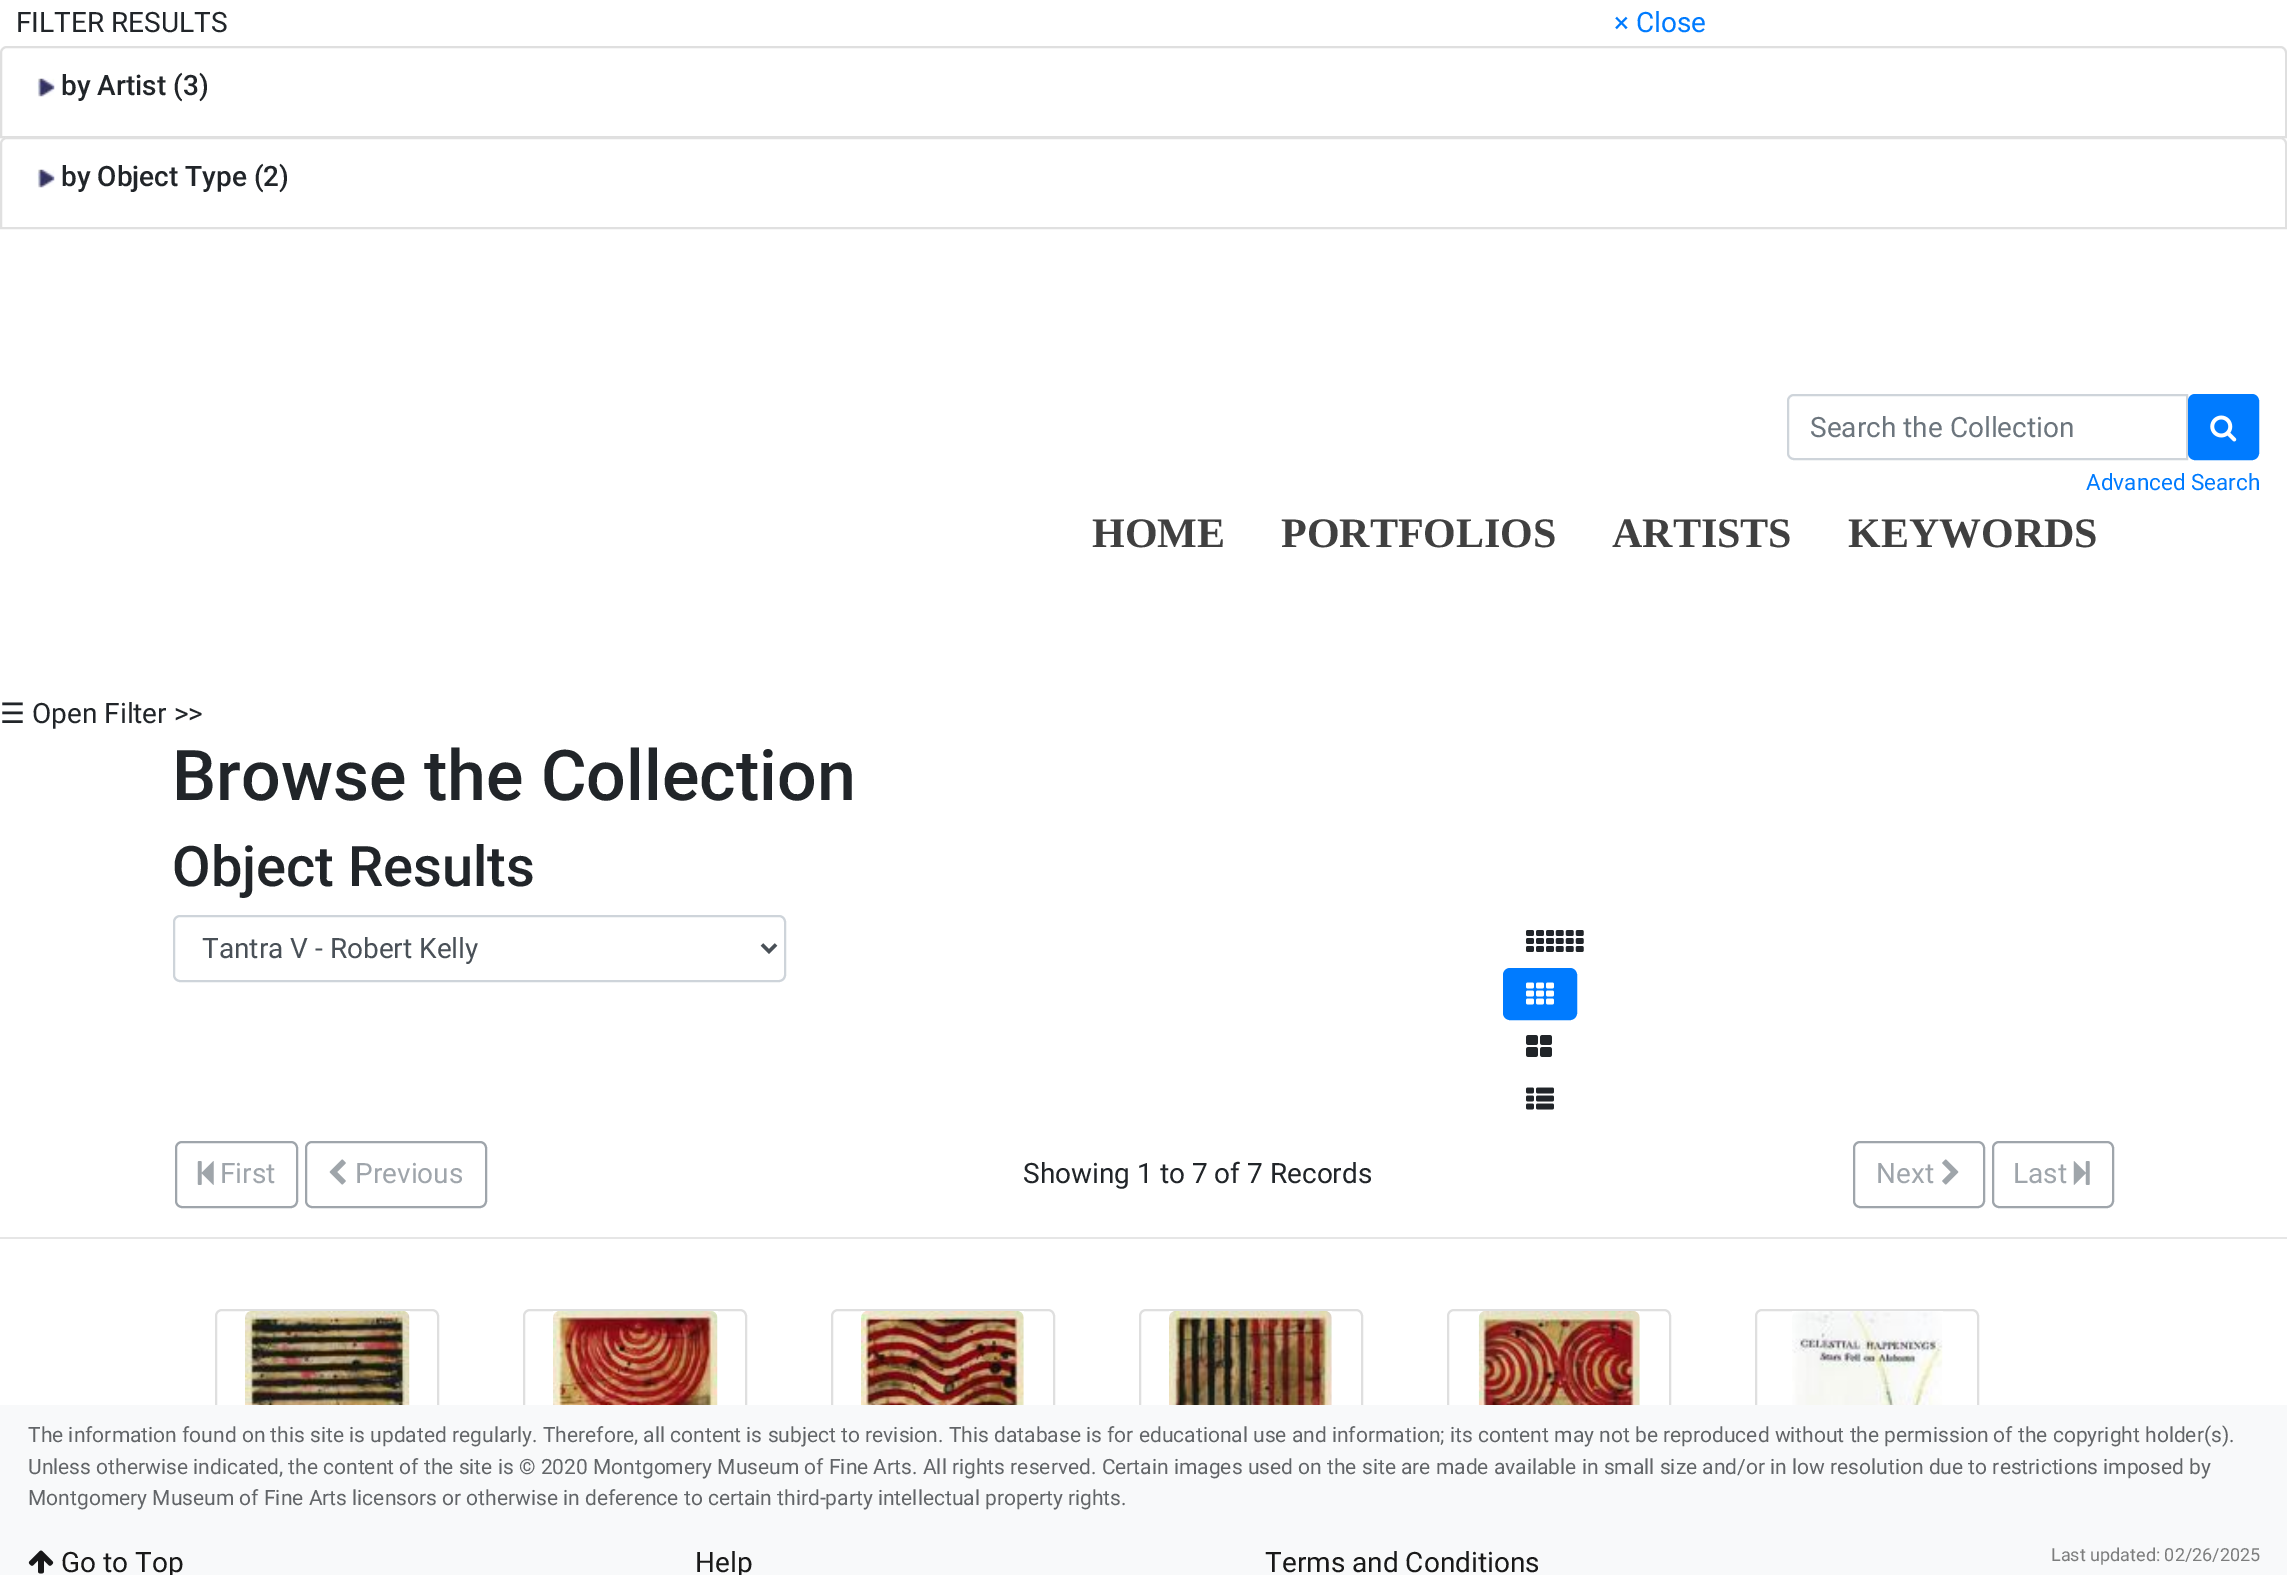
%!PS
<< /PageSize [2287 1575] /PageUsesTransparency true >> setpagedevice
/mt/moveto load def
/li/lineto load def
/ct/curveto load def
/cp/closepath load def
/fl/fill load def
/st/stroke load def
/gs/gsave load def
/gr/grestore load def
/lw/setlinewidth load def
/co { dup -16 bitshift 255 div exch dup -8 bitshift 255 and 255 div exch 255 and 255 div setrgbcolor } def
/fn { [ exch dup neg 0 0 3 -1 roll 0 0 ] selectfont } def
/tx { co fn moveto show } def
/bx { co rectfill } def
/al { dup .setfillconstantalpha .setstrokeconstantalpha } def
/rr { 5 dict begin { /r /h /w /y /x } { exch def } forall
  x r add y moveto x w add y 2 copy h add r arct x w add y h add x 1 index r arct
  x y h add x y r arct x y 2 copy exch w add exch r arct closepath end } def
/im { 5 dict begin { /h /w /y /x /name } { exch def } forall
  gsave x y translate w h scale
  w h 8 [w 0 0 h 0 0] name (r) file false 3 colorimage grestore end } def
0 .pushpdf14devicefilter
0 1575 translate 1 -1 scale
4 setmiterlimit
0 0 2287 1575 16#FFFFFF bx
16#DFDFDF co
2 lw
7 47 mt 2280 47 li 2283.5 47 2286 49.5 2286 53 ct 2286 137 li 1 137 li 1 53 li 1 49.5 3.5 47 7 47 ct cp st
(media/1.raw) 37 78 18 19 im
16#FFFFFF co
7 137 mt 2280 137 li 2284 137 2287 140 2287 144 ct 2287 229 li 0 229 li 0 144 li 0 140 3 137 7 137 ct cp fl
0.12 al
16#000000 co
7 138 mt 2280 138 li 2283.5 138 2286 140.5 2286 144 ct 2286 228 li 1 228 li 1 144 li 1 140.5 3.5 138 7 138 ct cp st
1 al
(media/1.raw) 37 169 18 19 im
16#CED4DA co
1794 395 mt 2187 395 li 2187 459 li 1794 459 li 1790.5 459 1788 456.5 1788 453 ct 1788 401 li 1788 397.5 1790.5 395 1794 395 ct cp st
16#007BFF co
2189 395 69 64 6 rr gs fl gr
st
(media/2.raw) 2210 415 27 27 im
16#CED4DA co
174 916 611 65 6 rr st
16#495057 co
3.5 lw
762 944.5 mt 769 951.5 li 776 944.5 li st
(media/3.raw) 1526 930 28 22 im
(media/4.raw) 1555 930 29 22 im
16#007BFF co
1504 969 72 50 6 rr gs fl gr
2 lw
st
(media/5.raw) 1526 982 28 23 im
(media/6.raw) 1526 1035 26 22 im
(media/7.raw) 1526 1087 28 23 im
16#9FA5AB co
176 1142 121 65 6 rr st
(media/8.raw) 197 1161 17 24 im
306 1142 180 65 6 rr st
(media/9.raw) 329 1159 17 26 im
1854 1142 130 65 6 rr st
(media/10.raw) 1942 1159 17 26 im
1993 1142 120 65 6 rr st
(media/11.raw) 2073 1161 17 24 im
0 1237 2287 2 16#E6E6E6 bx
16#DFDFDF co
216 1310 222 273 6 rr st
(media/12.raw) 245 1311 165 94 im
524 1310 222 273 6 rr st
(media/13.raw) 553 1311 165 94 im
832 1310 222 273 6 rr st
(media/14.raw) 861 1311 163 94 im
1140 1310 222 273 6 rr st
(media/15.raw) 1169 1311 163 94 im
1448 1310 222 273 6 rr st
(media/16.raw) 1478 1311 162 94 im
1756 1310 222 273 6 rr st
(media/17.raw) 1792 1311 151 94 im
0 1405 2287 170 16#F8F9FA bx
(media/18.raw) 28 1550 26 24 im
(FILTER RESULTS) 16 32 /Roboto-Regular 28 16#212529 tx
(× Close) 1614 32 /Roboto-Regular 28 16#007BFF tx
(by Artist \(3\)) 61 95 /Roboto-Medium 28 16#212529 tx
(by Object Type \(2\)) 61 186 /Roboto-Medium 28 16#212529 tx
(Search the Collection) 1810 437 /Roboto-Regular 28 16#6C757D tx
(Advanced Search) 2086 490 /Roboto-Regular 22.5 16#007BFF tx
(HOME) 1092 547 /LiberationSerif-Bold 42 16#404040 tx
(PORTFOLIOS) 1281 547 /LiberationSerif-Bold 42 16#404040 tx
(ARTISTS) 1612 547 /LiberationSerif-Bold 42 16#404040 tx
(KEYWORDS) 1848 547 /LiberationSerif-Bold 42 16#404040 tx
(☰) 0 723 /DejaVuSans-Regular 28 16#212529 tx
(Open Filter >>) 32 723 /Roboto-Regular 28 16#212529 tx
(Browse the Collection) 172 800 /Roboto-Medium 70 16#212529 tx
(Object Results) 172 886 /Roboto-Medium 56 16#212529 tx
(Tantra V - Robert Kelly) 202 958 /Roboto-Regular 28 16#495057 tx
(First) 220 1183 /Roboto-Regular 28 16#9FA5AB tx
(Previous) 355 1183 /Roboto-Regular 28 16#9FA5AB tx
(Showing 1 to 7 of 7 Records) 1023 1183 /Roboto-Regular 28 16#212529 tx
(Next) 1876 1183 /Roboto-Regular 28 16#9FA5AB tx
(Last) 2013 1183 /Roboto-Regular 28 16#9FA5AB tx
(The information found on this site is updated regularly. Therefore, all content is subject to revision. This database is for educational use and information; its content may not be reproduced without the permission of the copyright holder\(s\).) 28 1442 /Roboto-Regular 21 16#626568 tx
(Unless otherwise indicated, the content of the site is © 2020 Montgomery Museum of Fine Arts. All rights reserved. Certain images used on the site are made available in small size and/or in low resolution due to restrictions imposed by) 28 1474 /Roboto-Regular 21 16#626568 tx
(Montgomery Museum of Fine Arts licensors or otherwise in deference to certain third-party intellectual property rights.) 28 1505 /Roboto-Regular 21 16#626568 tx
(Go to Top) 61 1572 /Roboto-Regular 28 16#191919 tx
(Help) 695 1572 /Roboto-Regular 28 16#191919 tx
(Terms and Conditions) 1265 1572 /Roboto-Regular 28 16#191919 tx
(Last updated: 02/26/2025) 2051 1561 /Roboto-Regular 18 16#7C7D7D tx
.poppdf14devicefilter showpage
